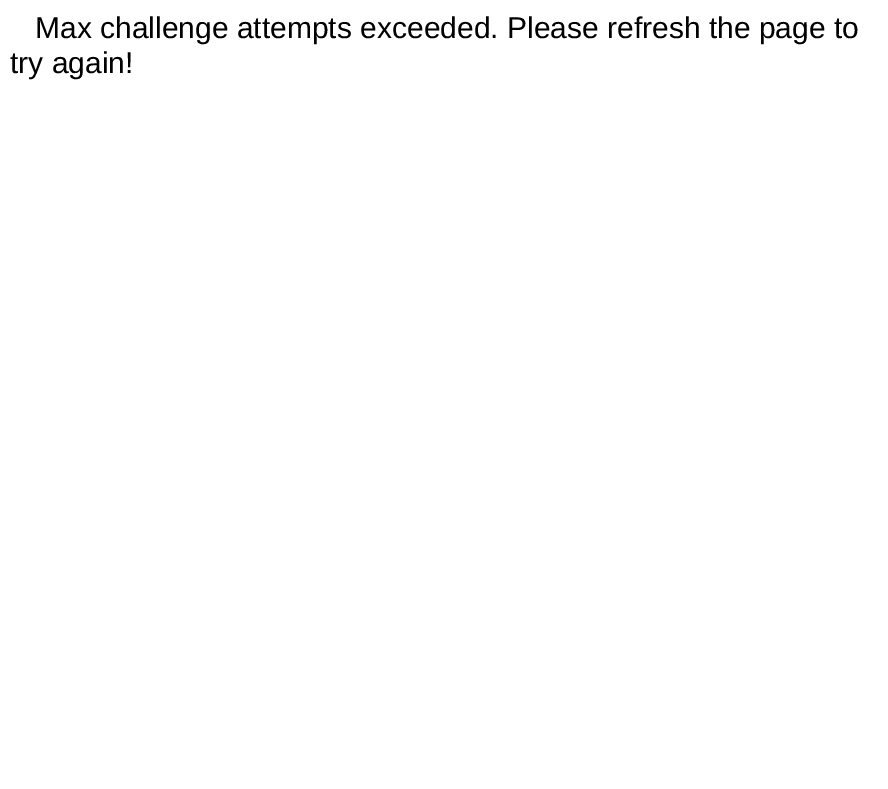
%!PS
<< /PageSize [888 789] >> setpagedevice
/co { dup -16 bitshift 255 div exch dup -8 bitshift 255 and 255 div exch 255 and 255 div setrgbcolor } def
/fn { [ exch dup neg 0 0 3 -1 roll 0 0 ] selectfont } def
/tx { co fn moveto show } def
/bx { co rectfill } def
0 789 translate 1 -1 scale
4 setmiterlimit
0 0 888 789 16#FFFFFF bx
(Max challenge attempts exceeded. Please refresh the page to) 35 38 /LiberationSans-Regular 30 16#000000 tx
(try again!) 10 73 /LiberationSans-Regular 30 16#000000 tx
showpage
